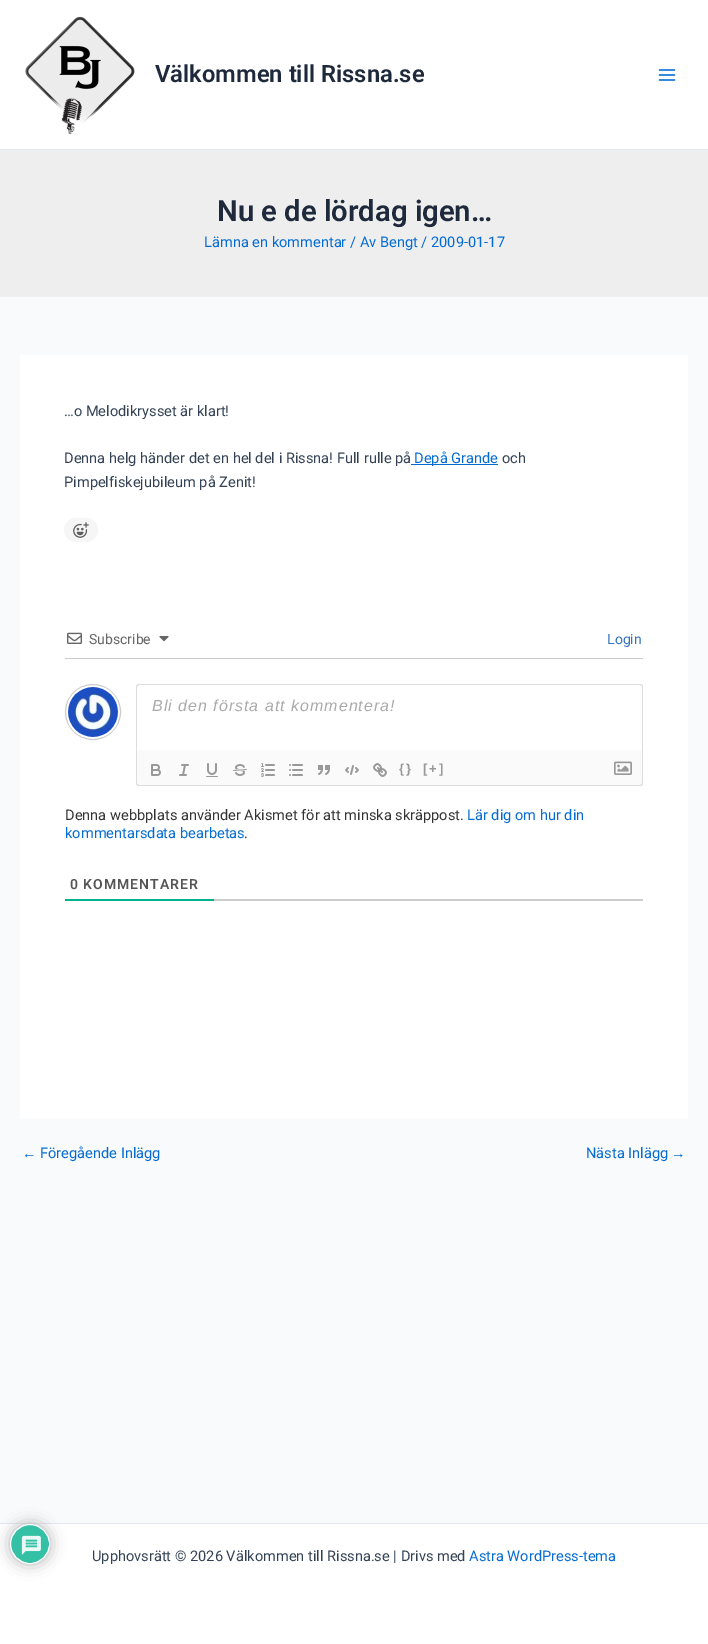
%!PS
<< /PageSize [708 1644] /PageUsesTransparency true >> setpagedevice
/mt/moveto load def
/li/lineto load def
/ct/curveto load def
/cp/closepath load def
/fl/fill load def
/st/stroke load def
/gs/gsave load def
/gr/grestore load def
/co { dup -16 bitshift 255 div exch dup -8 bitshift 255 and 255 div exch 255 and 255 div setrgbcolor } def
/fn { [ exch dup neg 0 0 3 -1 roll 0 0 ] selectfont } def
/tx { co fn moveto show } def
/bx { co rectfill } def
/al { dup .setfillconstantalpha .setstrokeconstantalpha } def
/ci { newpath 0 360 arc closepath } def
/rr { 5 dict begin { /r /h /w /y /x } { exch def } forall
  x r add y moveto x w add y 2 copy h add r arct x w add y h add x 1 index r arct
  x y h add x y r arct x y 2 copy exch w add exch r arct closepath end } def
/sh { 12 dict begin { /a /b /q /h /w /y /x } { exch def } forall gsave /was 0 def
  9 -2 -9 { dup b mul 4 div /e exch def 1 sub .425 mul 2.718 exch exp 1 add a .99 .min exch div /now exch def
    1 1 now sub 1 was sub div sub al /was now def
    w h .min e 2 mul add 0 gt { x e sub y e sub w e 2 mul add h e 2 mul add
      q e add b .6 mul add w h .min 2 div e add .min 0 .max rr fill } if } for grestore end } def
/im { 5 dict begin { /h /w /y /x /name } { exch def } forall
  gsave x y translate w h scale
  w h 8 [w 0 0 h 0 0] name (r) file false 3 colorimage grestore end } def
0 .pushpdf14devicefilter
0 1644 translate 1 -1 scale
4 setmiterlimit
0 0 708 1644 16#F9FAFB bx
0 0 708 149 16#FFFFFF bx
0 149 708 1 16#E2E8F0 bx
(media/1.raw) 25 16 110 119 im
(media/2.raw) 658 69 18 12 im
0 150 708 147 16#EEEEEE bx
20 355 668 764 16#FFFFFF bx
411 464 87 1 16#046BD2 bx
16#F6F6F6 co
64 518 34 24 12 rr fl
(media/3.raw) 73 522 16 16 im
65 658 578 1 16#CCCCCC bx
(media/4.raw) 67 632 15 12 im
(media/5.raw) 159 636 10 6 im
93 712 27.5 ci st
(media/6.raw) 68 687 50 50 im
16#DDDDDD co
139 684 mt 640 684 li 642 684 643 685 643 687 ct 643 750 li 136 750 li 136 687 li 136 685 137 684 139 684 ct cp 139 685 mt 640 685 li 641 685 642 686 642 687 ct 642 750 li 137 750 li 137 687 li 137 686 138 685 139 685 ct cp eofill
16#FAFAFA co
136 750 mt 643 750 li 643 783 li 643 784.5 641.5 786 640 786 ct 139 786 li 137.5 786 136 784.5 136 783 ct cp fl
16#DDDDDD co
136 750 mt 643 750 li 643 783 li 643 785 642 786 640 786 ct 139 786 li 137 786 136 785 136 783 ct cp 137 750 mt 642 750 li 642 783 li 642 784 641 785 640 785 ct 139 785 li 138 785 137 784 137 783 ct cp eofill
(media/7.raw) 151 764 10 12 im
(media/8.raw) 179 764 10 12 im
(media/9.raw) 206 763 12 14 im
(media/10.raw) 233 764 14 12 im
(media/11.raw) 261 763 14 14 im
(media/12.raw) 289 764 14 12 im
(media/13.raw) 318 765 12 10 im
(media/14.raw) 345 765 14 10 im
(media/15.raw) 373 763 14 14 im
(media/16.raw) 614 761 18 14 im
214 899 429 2 16#CCCCCC bx
65 899 149 2 16#00B38F bx
0 1524 708 120 16#FFFFFF bx
0 1523 708 1 16#E2E8F0 bx
16#AAAAAA co
10 1524 40 40 20 7.5 .9 sh
16#34C0A4 co
30 1544 19.5 ci gs fl gr
16#FFFFFF co
st
(media/17.raw) 21 1535 20 20 im
(Välkommen till Rissna.se) 155 82 /Roboto-SemiBold 23.75 16#1E293B tx
(Nu e de lördag igen…) 217 221 /Roboto-SemiBold 29.25 16#1E293B tx
(Lämna en kommentar / Av Bengt / 2009-01-17) 204 247 /Roboto-Regular 14.6 16#046BD2 tx
(…o Melodikrysset är klart!) 64 416 /Roboto-Regular 14.6 16#334155 tx
(Denna helg händer det en hel del i Rissna! Full rulle på) 64 463 /Roboto-Regular 14.6 16#334155 tx
(Depå Grande) 414 463 /Roboto-Regular 14.6 16#046BD2 tx
(och) 502 463 /Roboto-Regular 14.6 16#334155 tx
(Pimpelfiskejubileum på Zenit!) 64 487 /Roboto-Regular 14.6 16#334155 tx
(Subscribe) 89 644 /Roboto-Regular 14 16#666666 tx
(Login) 607 644 /Roboto-Regular 14 16#3272BF tx
/LiberationSans-Italic 16 fn
16#AAAAAA co
152 711 mt 1 0 (Bli den första att kommentera!) ashow
/LiberationSans-Bold 13 fn
16#999999 co
399 773 mt 2 0 ({}) ashow
423 773 mt 2 0 ([+]) ashow
(Denna webbplats använder Akismet för att minska skräppost.) 65 820 /Roboto-Regular 14.6 16#333333 tx
(Lär dig om hur din) 467 820 /Roboto-Regular 14.6 16#046BD2 tx
(kommentarsdata bearbetas) 65 838 /Roboto-Regular 14.6 16#046BD2 tx
(.) 244 838 /Roboto-Regular 14.6 16#333333 tx
/Roboto-SemiBold 14 fn
16#555555 co
70 889 mt 1 0 (0 KOMMENTARER) ashow
(←) 22 1158 /LiberationSans-Regular 14.6 16#046BD2 tx
(Föregående Inlägg) 40 1158 /Roboto-Regular 14.6 16#046BD2 tx
(Nästa Inlägg) 586 1158 /Roboto-Regular 14.6 16#046BD2 tx
(→) 671 1158 /LiberationSans-Regular 14.6 16#046BD2 tx
(Upphovsrätt © 2026 Välkommen till Rissna.se | Drivs med) 92 1561 /Roboto-Regular 14.6 16#334155 tx
(Astra WordPress-tema) 469 1561 /Roboto-Regular 14.6 16#046BD2 tx
.poppdf14devicefilter showpage
